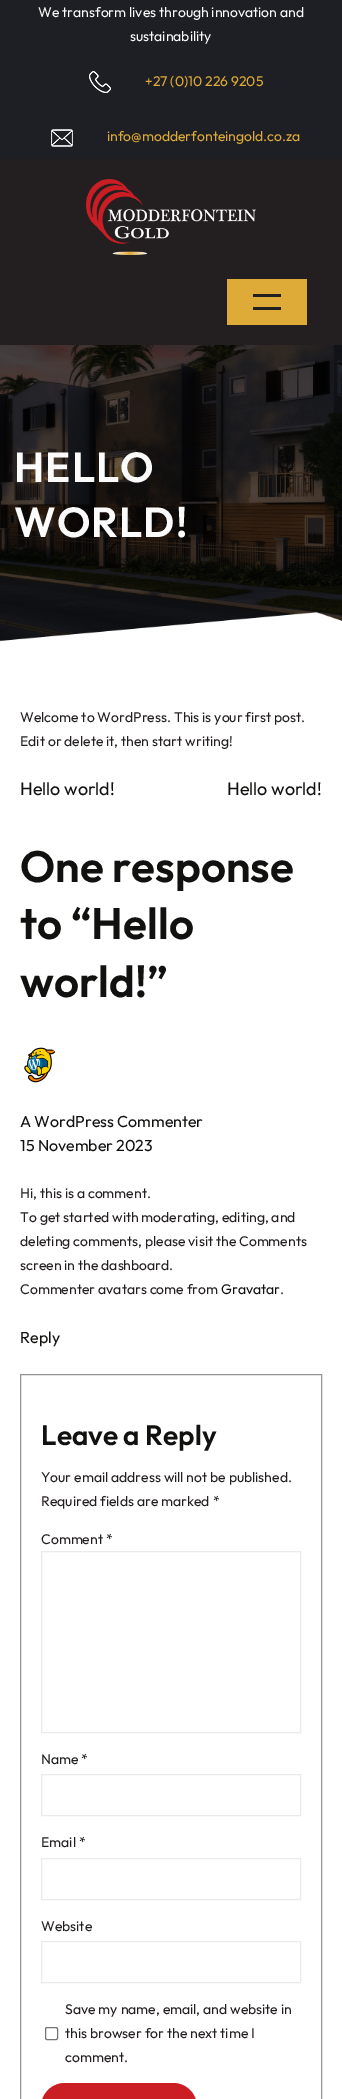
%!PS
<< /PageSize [342 2099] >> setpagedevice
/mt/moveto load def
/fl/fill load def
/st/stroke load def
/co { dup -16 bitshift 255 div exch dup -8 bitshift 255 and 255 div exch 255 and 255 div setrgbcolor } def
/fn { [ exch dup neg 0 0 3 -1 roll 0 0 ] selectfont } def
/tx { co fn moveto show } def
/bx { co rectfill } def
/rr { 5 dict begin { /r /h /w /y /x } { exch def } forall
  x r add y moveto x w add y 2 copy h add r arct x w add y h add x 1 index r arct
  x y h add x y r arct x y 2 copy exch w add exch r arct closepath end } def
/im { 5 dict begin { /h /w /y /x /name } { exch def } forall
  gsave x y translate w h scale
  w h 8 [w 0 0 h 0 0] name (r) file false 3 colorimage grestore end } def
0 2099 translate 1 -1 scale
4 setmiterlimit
0 0 342 2099 16#FFFFFF bx
0 0 342 159 16#1D1F25 bx
(media/1.raw) 89 71 22 22 im
(media/2.raw) 51 129 22 18 im
0 159 342 186 16#231F20 bx
(media/3.raw) 86 179 170 76 im
227 279 80 46 16#DFAB38 bx
253 294 28 3 16#231F20 bx
253 307 28 3 16#231F20 bx
(media/4.raw) 0 345 342 297 im
(media/5.raw) 24 1047 32 36 im
16#949494 co
20.5 1374.5 301 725 rectstroke
16#EBEBEB co
41.5 1551.5 259 181 rectstroke
41.5 1774.5 259 41 rectstroke
41.5 1858.5 259 41 rectstroke
41.5 1941.5 259 41 rectstroke
16#767676 co
45.5 2027.5 12 12 1.5 rr st
16#CB1E24 co
41 2083 156 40 24 rr fl
(We transform lives through innovation and) 38 17 /Outfit-Regular 14 16#FBFBFB tx
(sustainability) 130 41 /Outfit-Regular 14 16#FBFBFB tx
(+27 \(0\)10 226 9205) 145 86 /Outfit-Regular 14 16#DFAB38 tx
(info@modderfonteingold.co.za) 107 141 /Outfit-Regular 14 16#DFAB38 tx
/Outfit-SemiBold 42 fn
16#FBFBFB co
14 482 mt 1 0 (HELLO) ashow
14 537 mt 1 0 (WORLD!) ashow
(Welcome to WordPress. This is your first post.) 20 722 /Outfit-Regular 14 16#231F20 tx
(Edit or delete it, then start writing!) 20 746 /Outfit-Regular 14 16#231F20 tx
(Hello world!) 20 795 /Outfit-Regular 18 16#111110 tx
(Hello world!) 227 795 /Outfit-Regular 18 16#111110 tx
(One response) 20 882 /Outfit-SemiBold 44 16#111110 tx
(to “Hello) 20 939 /Outfit-SemiBold 44 16#111110 tx
(world!”) 20 997 /Outfit-SemiBold 44 16#111110 tx
(A WordPress Commenter) 20 1127 /Outfit-Regular 16 16#111110 tx
(15 November 2023) 20 1151 /Outfit-Regular 16 16#111110 tx
(Hi, this is a comment.) 20 1198 /Outfit-Regular 14 16#231F20 tx
(To get started with moderating, editing, and) 20 1222 /Outfit-Regular 14 16#231F20 tx
(deleting comments, please visit the Comments) 20 1246 /Outfit-Regular 14 16#231F20 tx
(screen in the dashboard.) 20 1270 /Outfit-Regular 14 16#231F20 tx
(Commenter avatars come from) 20 1294 /Outfit-Regular 14 16#231F20 tx
(Gravatar) 221 1294 /Outfit-Regular 14 16#111110 tx
(.) 280 1294 /Outfit-Regular 14 16#231F20 tx
(Reply) 20 1343 /Outfit-Regular 16 16#111110 tx
(Leave a Reply) 41 1445 /Outfit-SemiBold 28 16#111110 tx
(Your email address will not be published.) 41 1482 /Outfit-Regular 14 16#231F20 tx
(Required fields are marked *) 41 1506 /Outfit-Regular 14 16#231F20 tx
(Comment *) 41 1544 /Outfit-Regular 14 16#231F20 tx
(Name *) 41 1764 /Outfit-Regular 14 16#231F20 tx
(Email *) 41 1847 /Outfit-Regular 14 16#231F20 tx
(Website) 41 1931 /Outfit-Regular 14 16#231F20 tx
(Save my name, email, and website in) 65 2014 /Outfit-Regular 14 16#231F20 tx
(this browser for the next time I) 65 2038 /Outfit-Regular 14 16#231F20 tx
(comment.) 65 2062 /Outfit-Regular 14 16#231F20 tx
showpage
